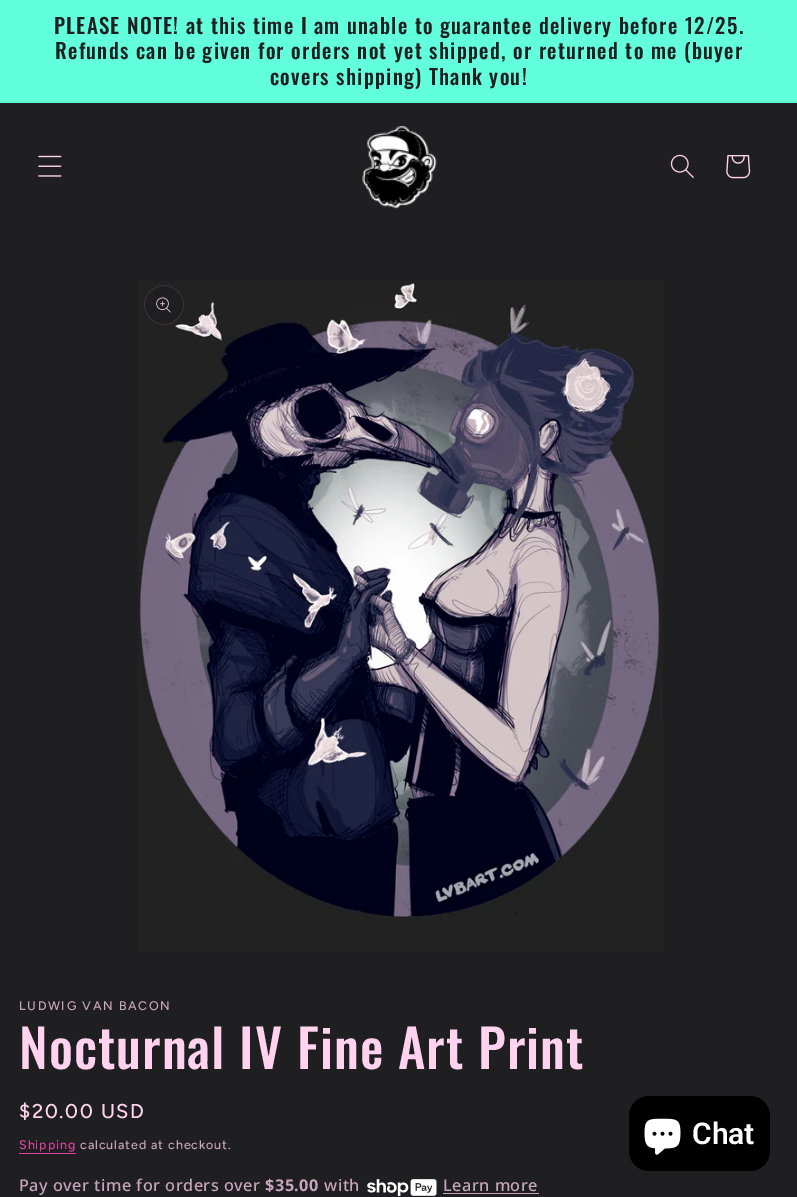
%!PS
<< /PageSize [797 1197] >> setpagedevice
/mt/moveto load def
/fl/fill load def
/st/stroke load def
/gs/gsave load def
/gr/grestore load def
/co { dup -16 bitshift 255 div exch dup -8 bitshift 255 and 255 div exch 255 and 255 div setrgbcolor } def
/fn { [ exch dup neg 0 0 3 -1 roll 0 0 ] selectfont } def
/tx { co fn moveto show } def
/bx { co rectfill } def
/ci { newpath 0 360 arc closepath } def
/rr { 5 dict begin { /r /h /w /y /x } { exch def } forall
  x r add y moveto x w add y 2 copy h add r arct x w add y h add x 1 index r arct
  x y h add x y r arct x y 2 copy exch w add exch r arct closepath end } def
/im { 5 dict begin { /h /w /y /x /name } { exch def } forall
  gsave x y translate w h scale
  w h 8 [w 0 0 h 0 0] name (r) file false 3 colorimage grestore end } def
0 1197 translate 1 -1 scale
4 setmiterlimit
0 0 797 1197 16#1F1F21 bx
0 0 797 103 16#61FFDC bx
0 101 797 1 16#5CEDCD bx
(media/1.raw) 38 155 24 22 im
(media/2.raw) 362 125 75 84 im
(media/3.raw) 670 154 24 24 im
(media/4.raw) 726 155 25 24 im
(media/5.raw) 138 281 525 671 im
16#1F1F21 co
164 305 19.5 ci gs fl gr
16#363136 co
st
(media/6.raw) 156 297 15 16 im
19 1153 57 1 16#DD43A5 bx
(media/7.raw) 367 1179 70 17 im
443 1193 96 1 16#C7A5BC bx
16#000000 co
629 1096 141 75 20 rr fl
(media/8.raw) 644 1118 37 37 im
/Oswald-Medium 21 fn
16#1F1F21 co
54 34 mt 1.25 0 (PLEASE NOTE! at this time I am unable to guarantee delivery before 12/25.) ashow
55 59 mt 1.25 0 (Refunds can be given for orders not yet shipped, or returned to me \(buyer) ashow
270 85 mt 1.25 0 (covers shipping\) Thank you!) ashow
/Figtree-Medium 12.5 fn
16#C7A5BC co
19 1010 mt 1.6 0 (LUDWIG VAN BACON) ashow
/Oswald-Medium 52.5 fn
16#FFD2EF co
19 1069 mt 1.05 0 (Nocturnal IV Fine Art Print) ashow
/Figtree-Medium 20 fn
19 1118 mt 1.6 0 ($20.00 USD) ashow
/Figtree-Medium 12.5 fn
16#DD43A5 co
19 1149 mt .9 0 (Shipping) ashow
16#C7A5BC co
80 1149 mt .9 0 (calculated at checkout.) ashow
/NotoSans-Medium 16.25 fn
19 1191 mt .5 0 (Pay over time for orders over) ashow
/NotoSans-Bold 16.25 fn
265 1191 mt .5 0 ($35.00) ashow
/NotoSans-Medium 16.25 fn
324 1191 mt .5 0 (with) ashow
443 1191 mt .5 0 (Learn more) ashow
(Chat) 692 1144 /Roboto-SemiBold 30 16#FFFFFF tx
showpage
